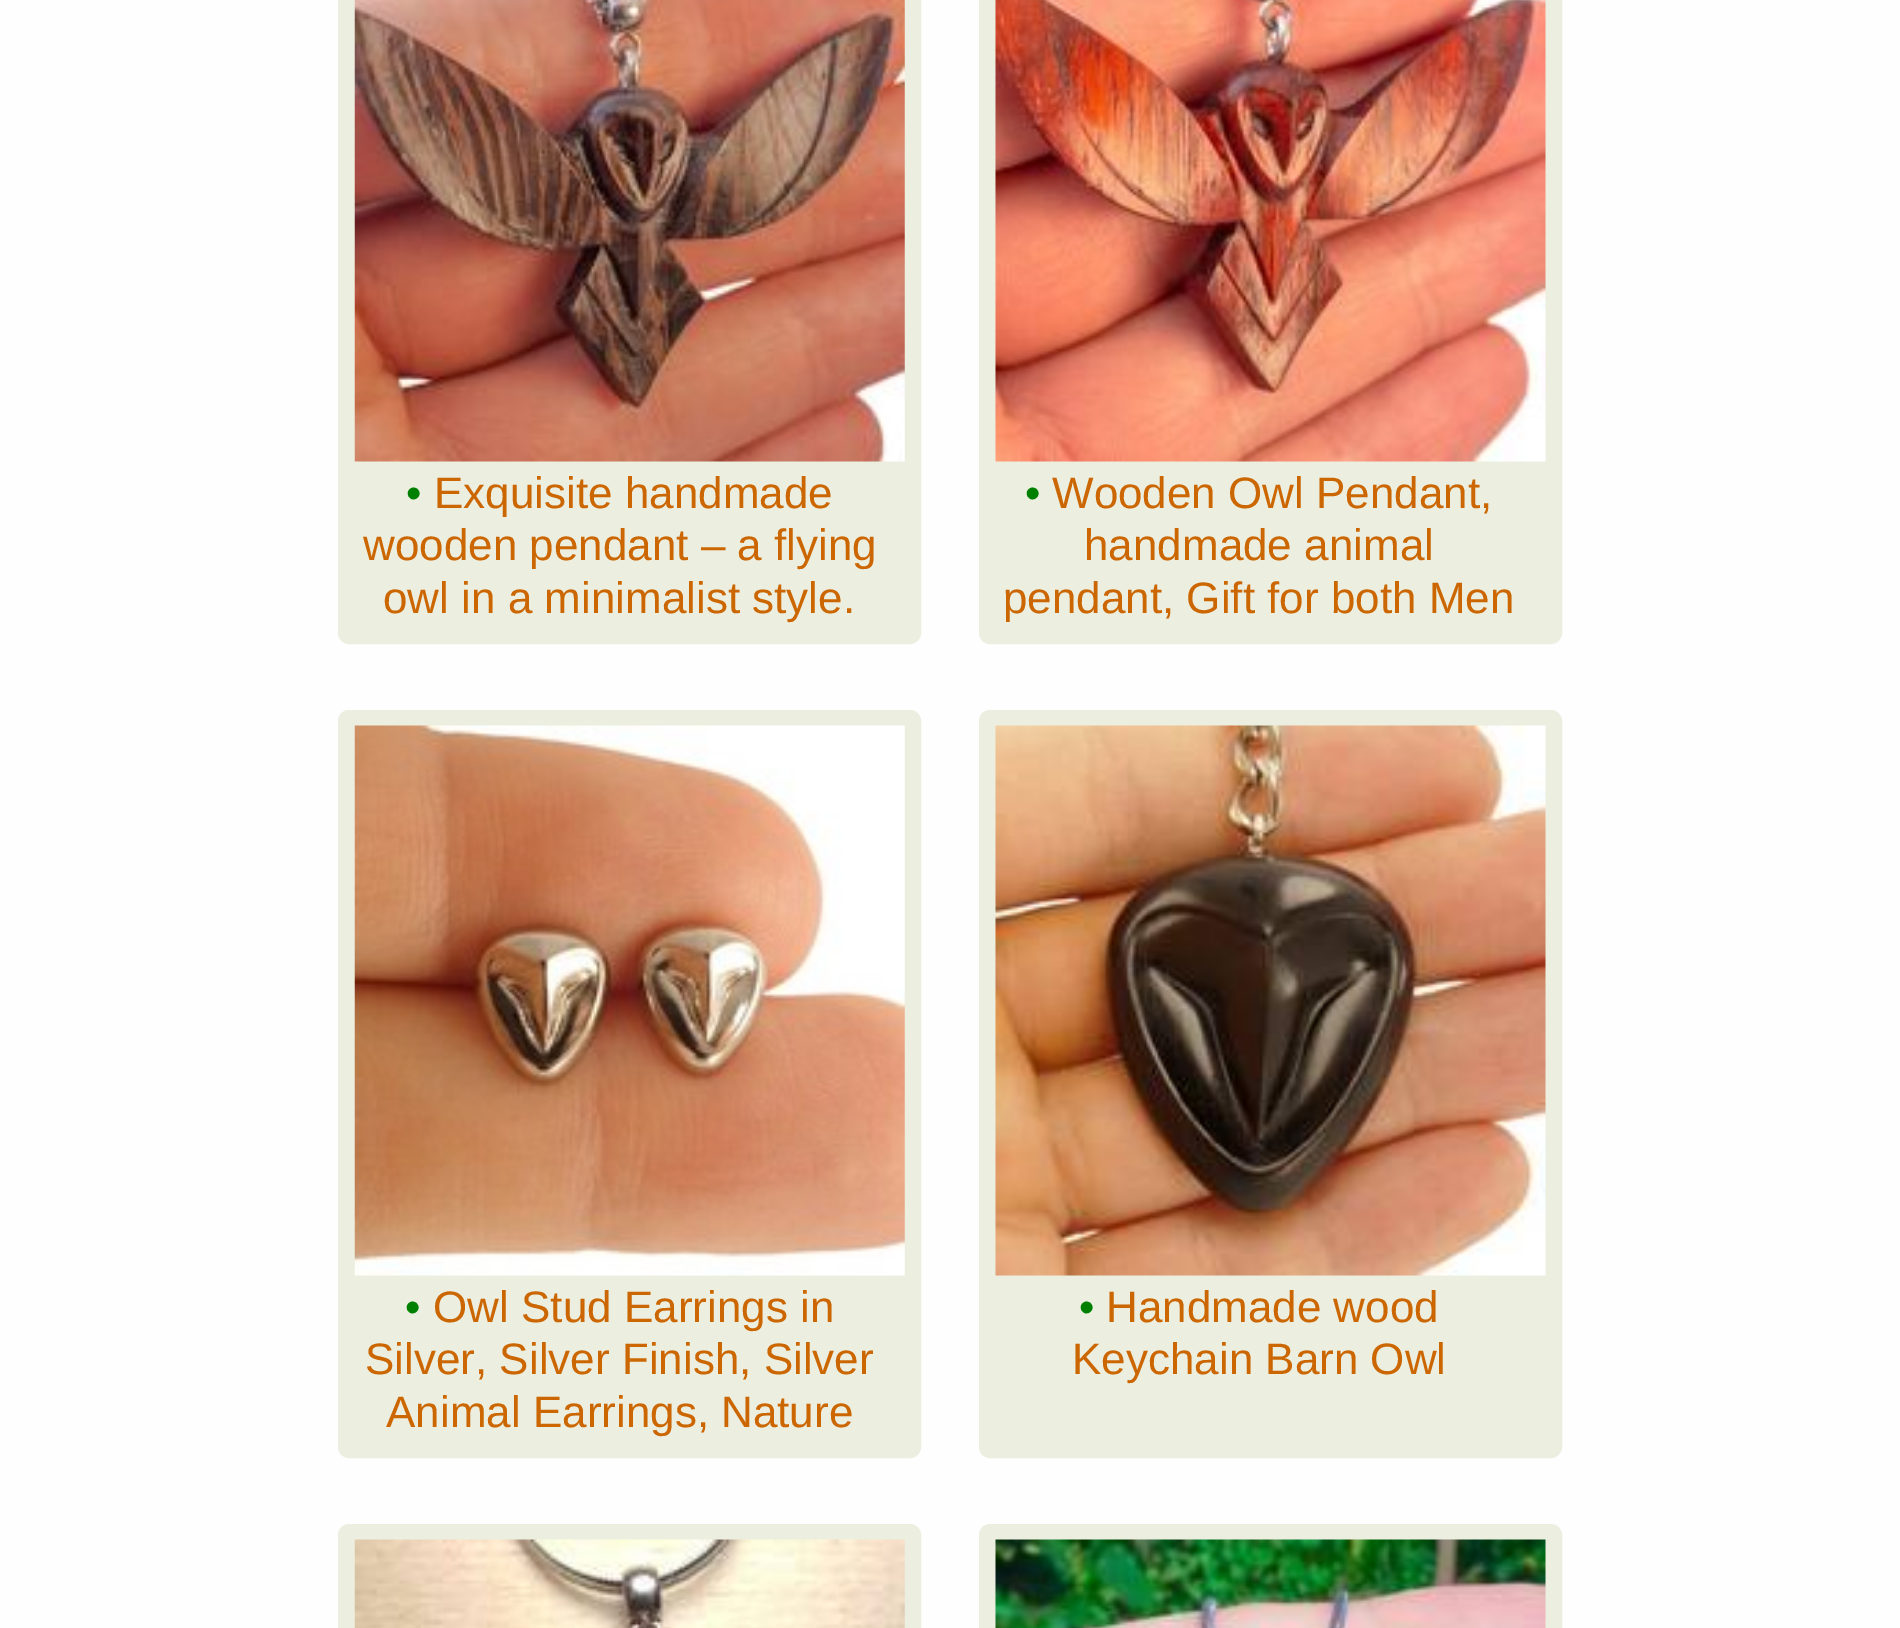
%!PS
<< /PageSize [1900 1628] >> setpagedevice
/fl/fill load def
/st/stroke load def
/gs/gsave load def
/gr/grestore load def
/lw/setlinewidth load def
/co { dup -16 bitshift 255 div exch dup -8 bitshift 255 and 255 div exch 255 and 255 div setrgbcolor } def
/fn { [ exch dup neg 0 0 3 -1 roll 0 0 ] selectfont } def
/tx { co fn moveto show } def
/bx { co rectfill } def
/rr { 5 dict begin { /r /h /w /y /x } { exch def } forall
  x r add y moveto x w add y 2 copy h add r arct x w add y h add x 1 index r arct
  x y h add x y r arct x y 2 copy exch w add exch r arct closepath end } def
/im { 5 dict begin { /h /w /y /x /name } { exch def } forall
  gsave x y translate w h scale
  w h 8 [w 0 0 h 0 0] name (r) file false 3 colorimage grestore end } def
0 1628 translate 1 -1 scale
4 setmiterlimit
0 0 1900 1628 16#FEFEFE bx
16#ECEEE0 co
341 -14 577 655 8 rr gs fl gr
6 lw
st
(media/1.raw) 354 0 551 462 im
982 -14 577 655 8 rr gs fl gr
st
(media/2.raw) 995 0 551 462 im
341 713 577 742 8 rr gs fl gr
st
(media/3.raw) 354 725 551 551 im
982 713 577 742 8 rr gs fl gr
st
(media/4.raw) 995 725 551 551 im
341 1527 577 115 8 rr gs fl gr
st
(media/5.raw) 354 1539 551 89 im
982 1527 577 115 8 rr gs fl gr
st
(media/6.raw) 995 1539 551 89 im
(•) 406 508 /LiberationSans-Regular 44 16#008000 tx
(Exquisite handmade) 434 508 /LiberationSans-Regular 44 16#CC6600 tx
(wooden pendant – a flying) 363 560 /LiberationSans-Regular 44 16#CC6600 tx
(owl in a minimalist style.) 383 613 /LiberationSans-Regular 44 16#CC6600 tx
(•) 1025 508 /LiberationSans-Regular 44 16#008000 tx
(Wooden Owl Pendant,) 1052 508 /LiberationSans-Regular 44 16#CC6600 tx
(handmade animal) 1084 560 /LiberationSans-Regular 44 16#CC6600 tx
(pendant, Gift for both Men) 1003 613 /LiberationSans-Regular 44 16#CC6600 tx
(•) 405 1322 /LiberationSans-Regular 44 16#008000 tx
(Owl Stud Earrings in) 433 1322 /LiberationSans-Regular 44 16#CC6600 tx
(Silver, Silver Finish, Silver) 365 1374 /LiberationSans-Regular 44 16#CC6600 tx
(Animal Earrings, Nature) 386 1427 /LiberationSans-Regular 44 16#CC6600 tx
(•) 1079 1322 /LiberationSans-Regular 44 16#008000 tx
(Handmade wood) 1106 1322 /LiberationSans-Regular 44 16#CC6600 tx
(Keychain Barn Owl) 1072 1374 /LiberationSans-Regular 44 16#CC6600 tx
showpage
